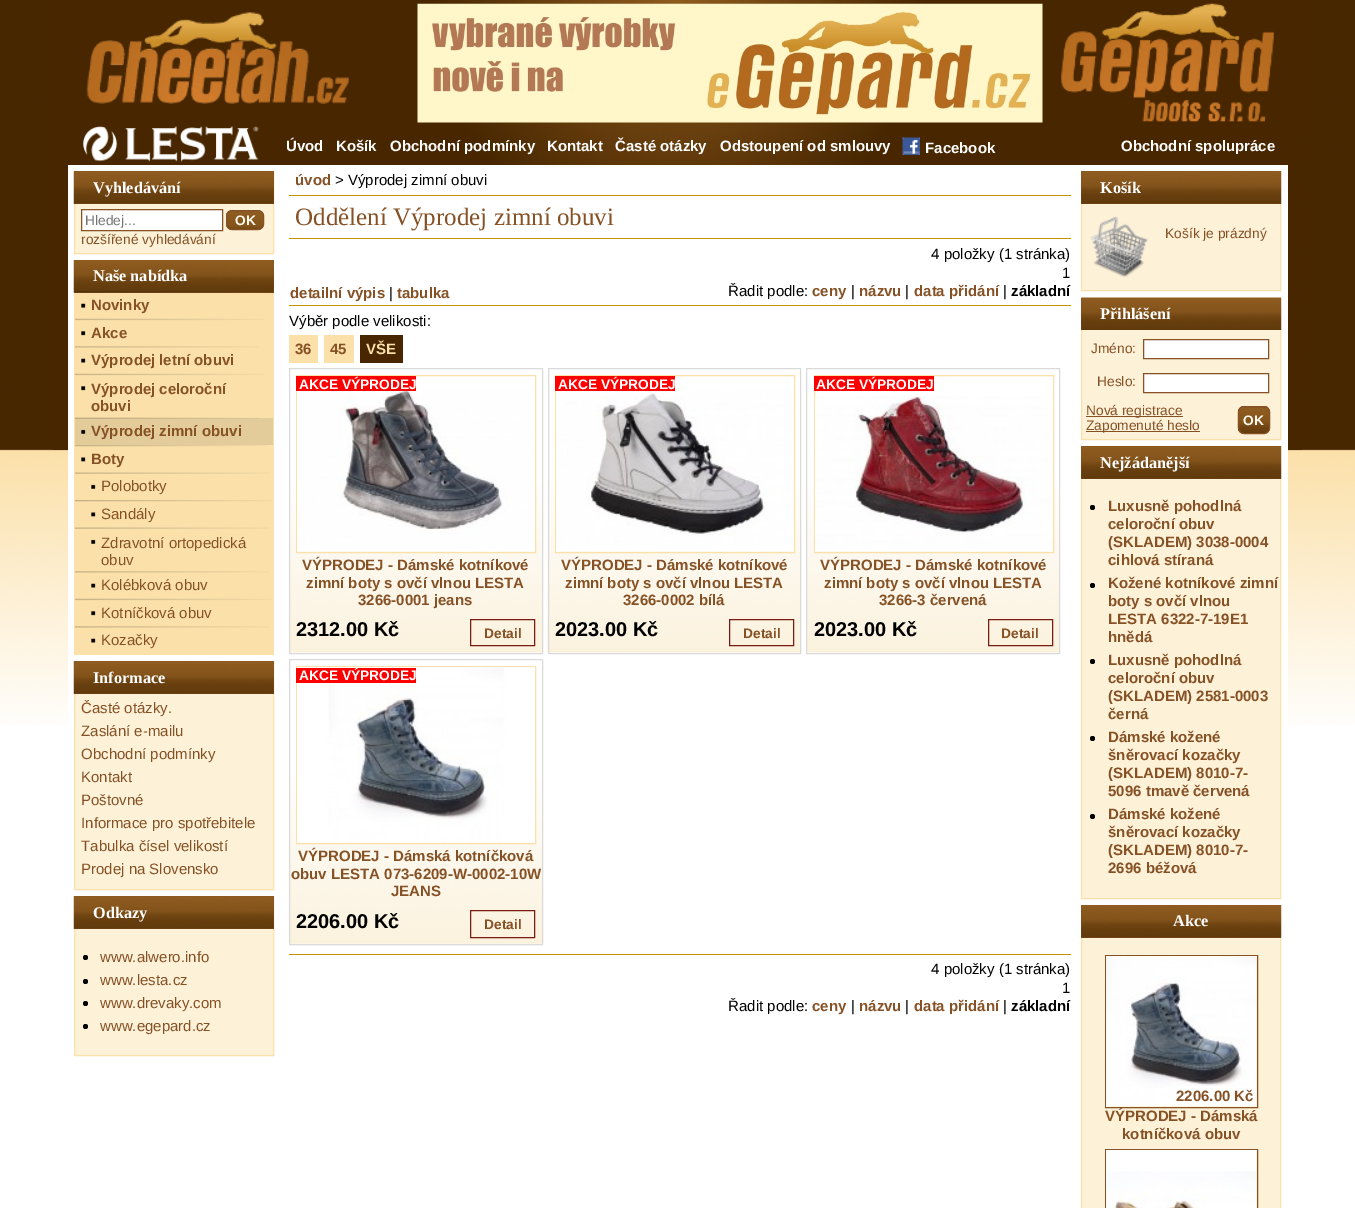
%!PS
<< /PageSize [1355 1208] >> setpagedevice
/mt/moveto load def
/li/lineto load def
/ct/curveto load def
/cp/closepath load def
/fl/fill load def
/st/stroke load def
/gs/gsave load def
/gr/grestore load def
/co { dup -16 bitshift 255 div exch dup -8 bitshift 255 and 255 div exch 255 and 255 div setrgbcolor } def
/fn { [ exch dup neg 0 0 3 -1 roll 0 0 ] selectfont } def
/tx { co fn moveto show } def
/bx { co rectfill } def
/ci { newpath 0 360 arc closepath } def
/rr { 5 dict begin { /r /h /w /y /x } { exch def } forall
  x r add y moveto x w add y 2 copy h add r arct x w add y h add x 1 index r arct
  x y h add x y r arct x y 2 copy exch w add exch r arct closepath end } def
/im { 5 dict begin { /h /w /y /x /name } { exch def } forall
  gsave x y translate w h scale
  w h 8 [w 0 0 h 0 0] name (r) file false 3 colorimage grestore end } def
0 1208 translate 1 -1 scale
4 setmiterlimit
0 0 1355 1208 16#FFFFFF bx
(media/1.raw) 0 0 1355 725 im
(media/2.raw) 52 0 1251 450 im
(media/3.raw) 86 12 263 92 im
(media/4.raw) 417 3 626 120 im
(media/5.raw) 1061 3 213 119 im
(media/6.raw) 83 126 176 36 im
(media/7.raw) 902 137 18 18 im
68 165 1220 560 16#FFFFFF bx
75 204 198 49 16#FDF1D8 bx
16#FBE0A9 co
74.5 171.5 199 82 rectstroke
74 171 200 33 16#865125 bx
(media/8.raw) 73 171 201 33 im
16#FFFFFF co
81.5 209.5 mt 222.5 209.5 li 222.5 230.5 li 81.5 230.5 li cp gs fl gr
16#865125 co
st
(media/9.raw) 226 211 38 19 im
226.5 210.5 37 19 5.5 rr st
74 293 200 362 16#FBE0A9 bx
74 260 200 33 16#865125 bx
(media/10.raw) 73 260 201 33 im
(media/11.raw) 75 291 158 17 im
(media/12.raw) 75 318 190 18 im
(media/13.raw) 75 346 184 17 im
(media/12.raw) 75 373 190 18 im
75 418 198 27 16#E3CC99 bx
(media/14.raw) 75 417 184 17 im
(media/15.raw) 75 445 193 17 im
(media/16.raw) 75 472 194 17 im
(media/17.raw) 75 500 197 17 im
(media/16.raw) 75 527 194 17 im
(media/18.raw) 75 571 194 17 im
(media/19.raw) 75 598 197 18 im
(media/18.raw) 75 626 194 17 im
75 694 198 195 16#FDF1D8 bx
16#FBE0A9 co
74.5 661.5 199 228 rectstroke
74 661 200 33 16#865125 bx
(media/8.raw) 73 661 201 33 im
75 929 198 126 16#FDF1D8 bx
16#FBE0A9 co
74.5 896.5 199 159 rectstroke
74 896 200 33 16#865125 bx
(media/8.raw) 73 896 201 33 im
16#000000 co
85.5 957.5 2.5 ci fl
85.5 981.5 2.5 ci fl
85.5 1003.5 2.5 ci fl
85.5 1026.5 2.5 ci fl
289 195 782 1 16#C79100 bx
289 238 782 1 16#C79200 bx
289 305 782 1 16#C79200 bx
289 335 29 28 16#FBE0A9 bx
324 335 30 28 16#FBE0A9 bx
360 335 43 28 16#482600 bx
(media/20.raw) 288 486 254 167 im
16#DADADA co
289.5 368.5 253 285 rectstroke
16#FBE0A9 co
296.5 375.5 239 177 rectstroke
(media/21.raw) 297 388 238 164 im
296 376 120 15 16#FF0000 bx
16#791D12 co
470.5 619.5 64 26 rectstroke
(media/22.raw) 547 486 255 167 im
16#DADADA co
548.5 368.5 252 285 rectstroke
16#FBE0A9 co
555.5 375.5 239 177 rectstroke
(media/23.raw) 556 389 238 163 im
555 376 120 15 16#FF0000 bx
16#791D12 co
729.5 619.5 64 26 rectstroke
(media/24.raw) 807 486 252 167 im
16#DADADA co
806.5 368.5 253 285 rectstroke
16#FBE0A9 co
814.5 375.5 239 177 rectstroke
(media/25.raw) 815 396 238 156 im
814 376 120 15 16#FF0000 bx
16#791D12 co
988.5 619.5 64 26 rectstroke
(media/26.raw) 288 778 254 166 im
16#DADADA co
289.5 659.5 253 285 rectstroke
16#FBE0A9 co
296.5 666.5 239 177 rectstroke
(media/27.raw) 297 667 238 176 im
296 668 120 15 16#FF0000 bx
16#791D12 co
470.5 910.5 64 27 rectstroke
289 954 782 1 16#C79200 bx
1082 204 198 86 16#FDF1D8 bx
16#FBE0A9 co
1081.5 171.5 199 119 rectstroke
1081 171 200 33 16#865125 bx
(media/28.raw) 1081 171 201 33 im
(media/29.raw) 1090 216 58 61 im
1082 330 198 109 16#FDF1D8 bx
16#FBE0A9 co
1081.5 298.5 199 141 rectstroke
(media/30.raw) 1081 297 201 33 im
16#FFFFFF co
1143.5 339.5 mt 1268.5 339.5 li 1268.5 358.5 li 1143.5 358.5 li cp gs fl gr
16#865125 co
st
16#FFFFFF co
1143.5 373.5 mt 1268.5 373.5 li 1268.5 392.5 li 1143.5 392.5 li cp gs fl gr
16#865125 co
st
1086 416 97 1 16#865125 bx
1086 431 114 1 16#865125 bx
1238 406 32 28 6 rr fl
(media/31.raw) 1237 407 33 27 im
1238.5 406.5 31 27 5.5 rr st
1082 479 198 419 16#FDF1D8 bx
16#FBE0A9 co
1081.5 446.5 199 452 rectstroke
1081 446 200 33 16#865125 bx
(media/28.raw) 1081 446 201 33 im
16#000000 co
1092.5 507.5 2.5 ci fl
1092.5 585.5 2.5 ci fl
1092.5 661.5 2.5 ci fl
1092.5 738.5 2.5 ci fl
1092.5 816.5 2.5 ci fl
1082 938 198 270 16#FDF1D8 bx
16#FBE0A9 co
1081.5 905.5 199 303 rectstroke
1081 905 200 33 16#865125 bx
(media/32.raw) 1081 905 201 33 im
1105.5 955.5 152 152 rectstroke
(media/33.raw) 1106 956 151 151 im
16#FFFFFF co
1180 1086 mt 1256 1086 li 1256 1106 li 1174 1106 li 1174 1092 li 1174 1088.5 1176.5 1086 1180 1086 ct cp fl
16#865125 co
1105.5 1149.5 152 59 rectstroke
(media/34.raw) 1106 1150 151 58 im
(Úvod) 286 151 /LiberationSans-Bold 15 16#FFFFFF tx
(Košík) 336 151 /LiberationSans-Bold 15 16#FFFFFF tx
(Obchodní podmínky) 390 151 /LiberationSans-Bold 15 16#FFFFFF tx
(Kontakt) 547 151 /LiberationSans-Bold 15 16#FFFFFF tx
(Časté otázky) 615 151 /LiberationSans-Bold 15 16#FFFFFF tx
(Odstoupení od smlouvy) 720 151 /LiberationSans-Bold 15 16#FFFFFF tx
(Facebook) 925 153 /LiberationSans-Bold 15 16#FFFFFF tx
(Obchodní spolupráce) 1121 151 /LiberationSans-Bold 15 16#FFFFFF tx
(Vyhledávání) 93 193 /LiberationSerif-Bold 16.25 16#FFFFFF tx
(Hledej...) 85 225 /LiberationSans-Regular 13.75 16#757575 tx
(OK) 235 225 /LiberationSans-Bold 13.75 16#FFFAED tx
(rozšířené vyhledávání) 81 244 /LiberationSans-Regular 13.75 16#865125 tx
(Naše nabídka) 93 281 /LiberationSerif-Bold 16.25 16#FFFFFF tx
(Novinky) 91 310 /LiberationSans-Bold 15 16#865125 tx
(Akce) 91 338 /LiberationSans-Bold 15 16#865125 tx
(Výprodej letní obuvi) 91 365 /LiberationSans-Bold 15 16#865125 tx
(Výprodej celoroční) 91 394 /LiberationSans-Bold 15 16#865125 tx
(obuvi) 91 411 /LiberationSans-Bold 15 16#865125 tx
(Výprodej zimní obuvi) 91 436 /LiberationSans-Bold 15 16#865125 tx
(Boty) 91 464 /LiberationSans-Bold 15 16#865125 tx
(Polobotky) 101 491 /LiberationSans-Regular 15 16#865125 tx
(Sandály) 101 519 /LiberationSans-Regular 15 16#865125 tx
(Zdravotní ortopedická) 101 548 /LiberationSans-Regular 15 16#865125 tx
(obuv) 101 565 /LiberationSans-Regular 15 16#865125 tx
(Kolébková obuv) 101 590 /LiberationSans-Regular 15 16#865125 tx
(Kotníčková obuv) 101 618 /LiberationSans-Regular 15 16#865125 tx
(Kozačky) 101 645 /LiberationSans-Regular 15 16#865125 tx
(Informace) 93 683 /LiberationSerif-Bold 16.25 16#FFFFFF tx
(Časté otázky.) 81 713 /LiberationSans-Regular 15 16#865125 tx
(Zaslání e-mailu) 81 736 /LiberationSans-Regular 15 16#865125 tx
(Obchodní podmínky) 81 759 /LiberationSans-Regular 15 16#865125 tx
(Kontakt) 81 782 /LiberationSans-Regular 15 16#865125 tx
(Poštovné) 81 805 /LiberationSans-Regular 15 16#865125 tx
(Informace pro spotřebitele) 81 828 /LiberationSans-Regular 15 16#865125 tx
(Tabulka čísel velikostí) 81 851 /LiberationSans-Regular 15 16#865125 tx
(Prodej na Slovensko) 81 874 /LiberationSans-Regular 15 16#865125 tx
(Odkazy) 93 918 /LiberationSerif-Bold 16.25 16#FFFFFF tx
(www.alwero.info) 100 962 /LiberationSans-Regular 15 16#865125 tx
(www.lesta.cz) 100 985 /LiberationSans-Regular 15 16#865125 tx
(www.drevaky.com) 100 1008 /LiberationSans-Regular 15 16#865125 tx
(www.egepard.cz) 100 1031 /LiberationSans-Regular 15 16#865125 tx
(úvod) 295 185 /LiberationSans-Bold 15 16#865125 tx
(> Výprodej zimní obuvi) 335 185 /LiberationSans-Regular 15 16#000000 tx
(Oddělení Výprodej zimní obuvi) 295 225 /LiberationSerif-Regular 25 16#865125 tx
(4 položky \(1 stránka\)) 931 259 /LiberationSans-Regular 15 16#000000 tx
(1) 1062 278 /LiberationSans-Regular 15 16#000000 tx
(detailní výpis) 290 298 /LiberationSans-Bold 15 16#865125 tx
(|) 389 298 /LiberationSans-Regular 15 16#000000 tx
(tabulka) 397 298 /LiberationSans-Bold 15 16#865125 tx
(Řadit podle:) 728 296 /LiberationSans-Regular 15 16#000000 tx
(ceny) 812 296 /LiberationSans-Bold 15 16#865125 tx
(|) 851 296 /LiberationSans-Regular 15 16#000000 tx
(názvu) 859 296 /LiberationSans-Bold 15 16#865125 tx
(|) 905 296 /LiberationSans-Regular 15 16#000000 tx
(data přidání) 914 296 /LiberationSans-Bold 15 16#865125 tx
(|) 1003 296 /LiberationSans-Regular 15 16#000000 tx
(základní) 1011 296 /LiberationSans-Bold 15 16#000000 tx
(Výběr podle velikosti:) 289 326 /LiberationSans-Regular 15 16#000000 tx
(36) 295 354 /LiberationSans-Bold 15 16#865125 tx
(45) 330 354 /LiberationSans-Bold 15 16#865125 tx
(VŠE) 366 354 /LiberationSans-Bold 15 16#FBE0A9 tx
(AKCE VÝPRODEJ) 299 389 /LiberationSans-Bold 13.75 16#FFFFFF tx
(VÝPRODEJ - Dámské kotníkové) 302 570 /LiberationSans-Bold 15 16#865125 tx
(zimní boty s ovčí vlnou LESTA) 306 588 /LiberationSans-Bold 15 16#865125 tx
(3266-0001 jeans) 358 605 /LiberationSans-Bold 15 16#865125 tx
(2312.00 Kč) 296 636 /LiberationSans-Bold 20 16#000000 tx
(Detail) 484 638 /LiberationSans-Bold 13.75 16#865125 tx
(AKCE VÝPRODEJ) 558 389 /LiberationSans-Bold 13.75 16#FFFFFF tx
(VÝPRODEJ - Dámské kotníkové) 561 570 /LiberationSans-Bold 15 16#865125 tx
(zimní boty s ovčí vlnou LESTA) 565 588 /LiberationSans-Bold 15 16#865125 tx
(3266-0002 bílá) 623 605 /LiberationSans-Bold 15 16#865125 tx
(2023.00 Kč) 555 636 /LiberationSans-Bold 20 16#000000 tx
(Detail) 743 638 /LiberationSans-Bold 13.75 16#865125 tx
(AKCE VÝPRODEJ) 816 389 /LiberationSans-Bold 13.75 16#FFFFFF tx
(VÝPRODEJ - Dámské kotníkové) 820 570 /LiberationSans-Bold 15 16#865125 tx
(zimní boty s ovčí vlnou LESTA) 824 588 /LiberationSans-Bold 15 16#865125 tx
(3266-3 červená) 879 605 /LiberationSans-Bold 15 16#865125 tx
(2023.00 Kč) 814 636 /LiberationSans-Bold 20 16#000000 tx
(Detail) 1001 638 /LiberationSans-Bold 13.75 16#865125 tx
(AKCE VÝPRODEJ) 299 680 /LiberationSans-Bold 13.75 16#FFFFFF tx
(VÝPRODEJ - Dámská kotníčková) 298 861 /LiberationSans-Bold 15 16#865125 tx
(obuv LESTA 073-6209-W-0002-10W) 291 879 /LiberationSans-Bold 15 16#865125 tx
(JEANS) 391 896 /LiberationSans-Bold 15 16#865125 tx
(2206.00 Kč) 296 928 /LiberationSans-Bold 20 16#000000 tx
(Detail) 484 929 /LiberationSans-Bold 13.75 16#865125 tx
(4 položky \(1 stránka\)) 931 974 /LiberationSans-Regular 15 16#000000 tx
(1) 1062 993 /LiberationSans-Regular 15 16#000000 tx
(Řadit podle:) 728 1011 /LiberationSans-Regular 15 16#000000 tx
(ceny) 812 1011 /LiberationSans-Bold 15 16#865125 tx
(|) 851 1011 /LiberationSans-Regular 15 16#000000 tx
(názvu) 859 1011 /LiberationSans-Bold 15 16#865125 tx
(|) 905 1011 /LiberationSans-Regular 15 16#000000 tx
(data přidání) 914 1011 /LiberationSans-Bold 15 16#865125 tx
(|) 1003 1011 /LiberationSans-Regular 15 16#000000 tx
(základní) 1011 1011 /LiberationSans-Bold 15 16#000000 tx
(Košík) 1100 193 /LiberationSerif-Bold 16.25 16#FFFFFF tx
(Košík je prázdný) 1165 238 /LiberationSans-Regular 13.75 16#865125 tx
(Přihlášení) 1100 319 /LiberationSerif-Bold 16.25 16#FFFFFF tx
(Jméno:) 1091 353 /LiberationSans-Regular 13.75 16#865125 tx
(Heslo:) 1097 386 /LiberationSans-Regular 13.75 16#865125 tx
(Nová registrace) 1086 415 /LiberationSans-Regular 13.75 16#865125 tx
(Zapomenuté heslo) 1086 430 /LiberationSans-Regular 13.75 16#865125 tx
(OK) 1243 425 /LiberationSans-Bold 13.75 16#FFFAED tx
(Nejžádanější) 1100 468 /LiberationSerif-Bold 16.25 16#FFFFFF tx
(Luxusně pohodlná) 1108 511 /LiberationSans-Bold 15 16#865125 tx
(celoroční obuv) 1108 529 /LiberationSans-Bold 15 16#865125 tx
(\(SKLADEM\) 3038-0004) 1108 547 /LiberationSans-Bold 15 16#865125 tx
(cihlová stíraná) 1108 565 /LiberationSans-Bold 15 16#865125 tx
(Kožené kotníkové zimní) 1108 588 /LiberationSans-Bold 15 16#865125 tx
(boty s ovčí vlnou) 1108 606 /LiberationSans-Bold 15 16#865125 tx
(LESTA 6322-7-19E1) 1108 624 /LiberationSans-Bold 15 16#865125 tx
(hnědá) 1108 642 /LiberationSans-Bold 15 16#865125 tx
(Luxusně pohodlná) 1108 665 /LiberationSans-Bold 15 16#865125 tx
(celoroční obuv) 1108 683 /LiberationSans-Bold 15 16#865125 tx
(\(SKLADEM\) 2581-0003) 1108 701 /LiberationSans-Bold 15 16#865125 tx
(černá) 1108 719 /LiberationSans-Bold 15 16#865125 tx
(Dámské kožené) 1108 742 /LiberationSans-Bold 15 16#865125 tx
(šněrovací kozačky) 1108 760 /LiberationSans-Bold 15 16#865125 tx
(\(SKLADEM\) 8010-7-) 1108 778 /LiberationSans-Bold 15 16#865125 tx
(5096 tmavě červená) 1108 796 /LiberationSans-Bold 15 16#865125 tx
(Dámské kožené) 1108 819 /LiberationSans-Bold 15 16#865125 tx
(šněrovací kozačky) 1108 837 /LiberationSans-Bold 15 16#865125 tx
(\(SKLADEM\) 8010-7-) 1108 855 /LiberationSans-Bold 15 16#865125 tx
(2696 béžová) 1108 873 /LiberationSans-Bold 15 16#865125 tx
(Akce) 1173 926 /LiberationSerif-Bold 16.25 16#FFFFFF tx
(2206.00 Kč) 1176 1101 /LiberationSans-Bold 15 16#865125 tx
(VÝPRODEJ - Dámská) 1105 1121 /LiberationSans-Bold 15 16#865125 tx
(kotníčková obuv) 1122 1139 /LiberationSans-Bold 15 16#865125 tx
showpage
